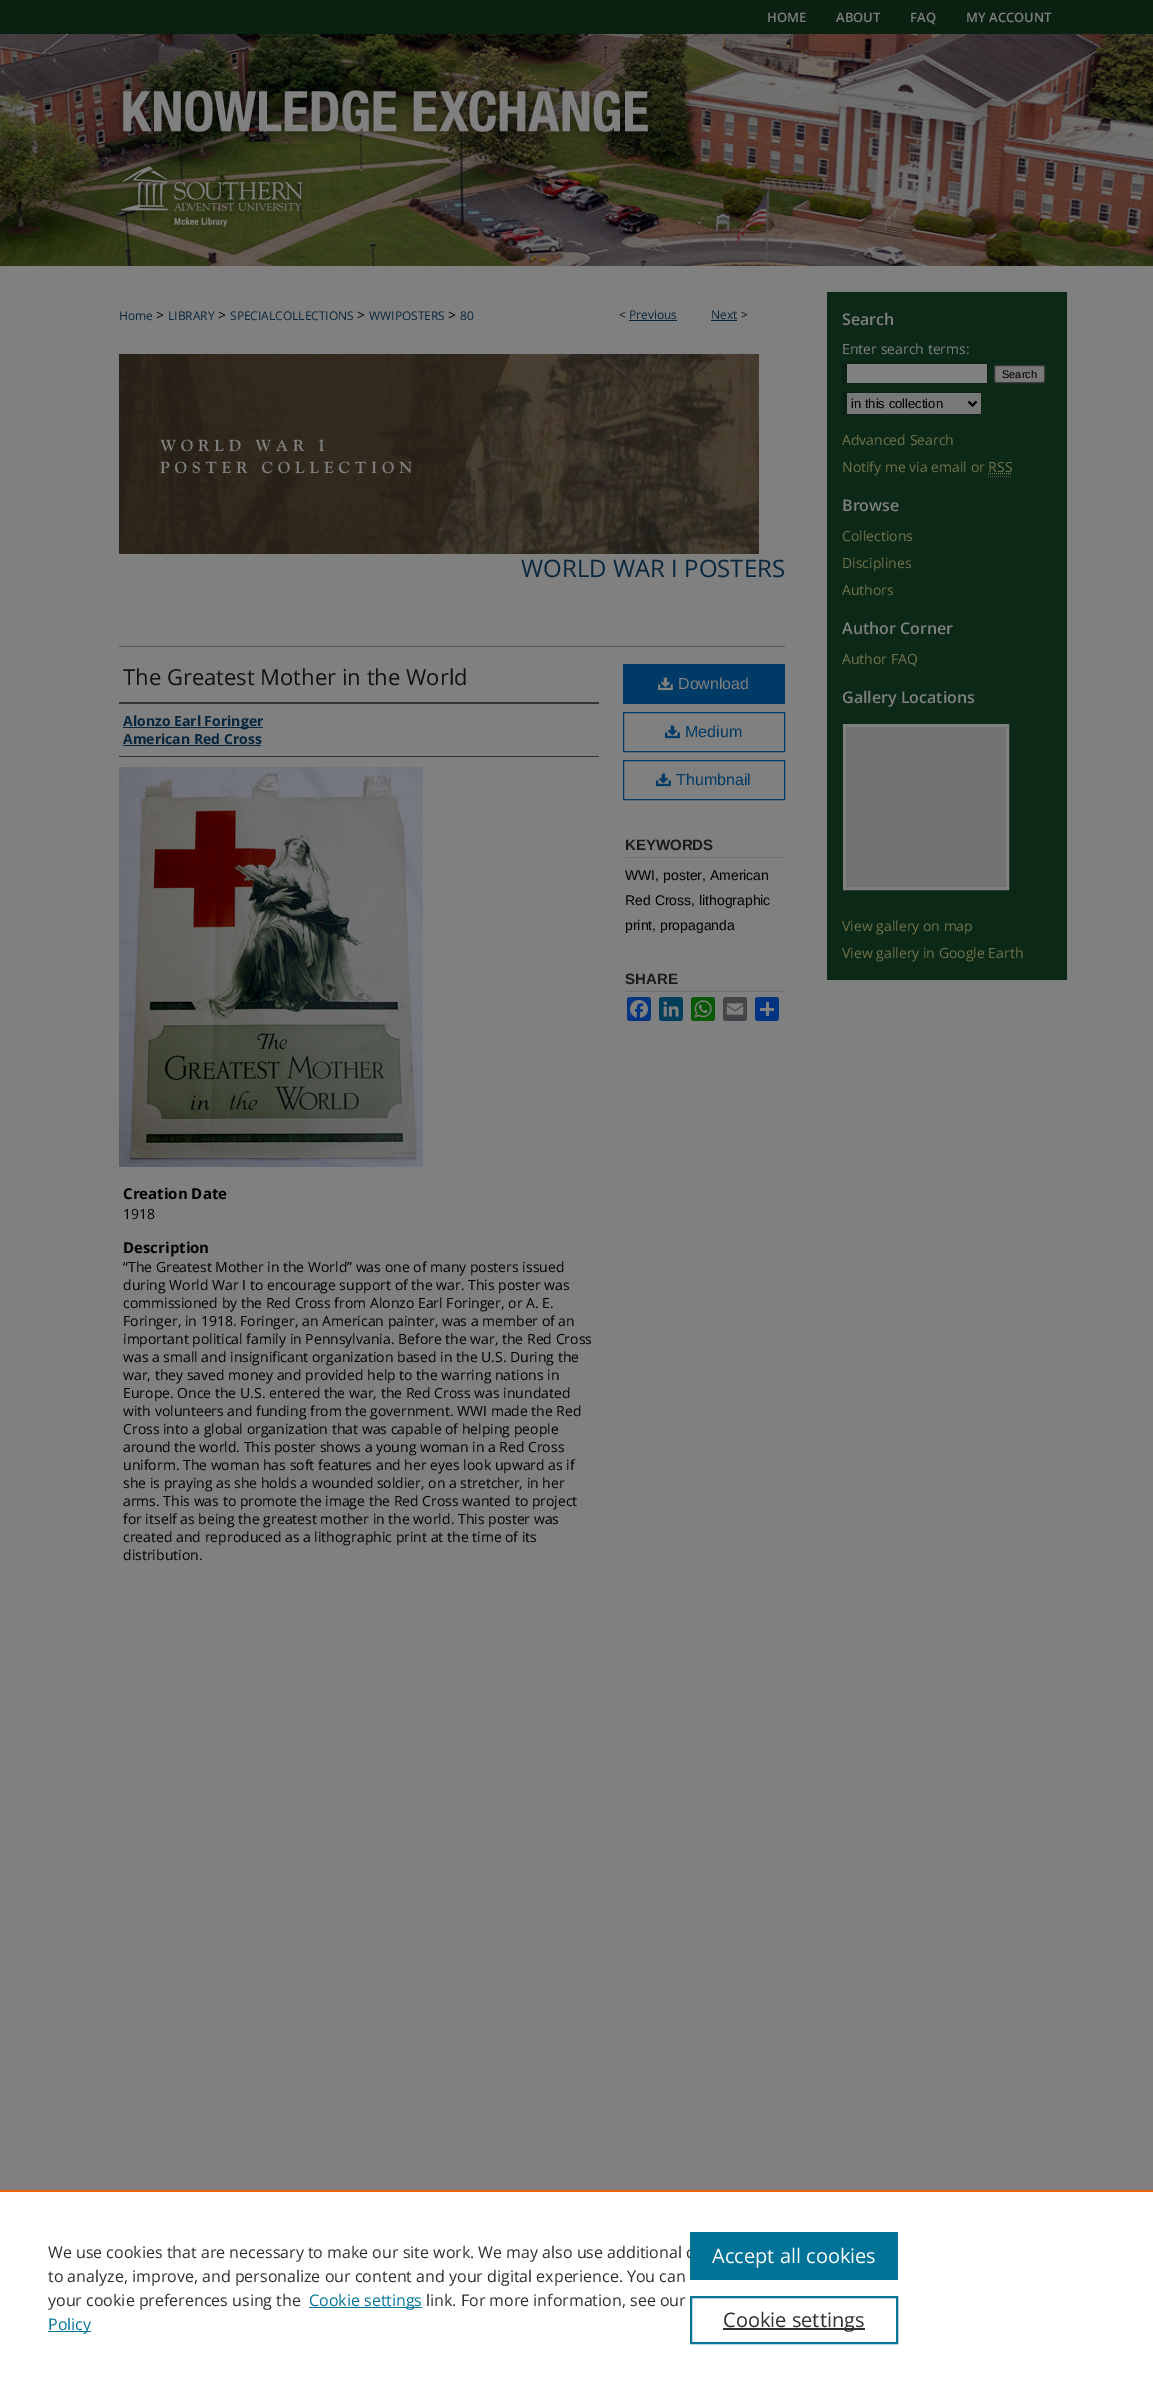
%!PS
<< /PageSize [1153 2384] >> setpagedevice
/mt/moveto load def
/li/lineto load def
/fl/fill load def
/st/stroke load def
/gs/gsave load def
/gr/grestore load def
/lw/setlinewidth load def
/co { dup -16 bitshift 255 div exch dup -8 bitshift 255 and 255 div exch 255 and 255 div setrgbcolor } def
/fn { [ exch dup neg 0 0 3 -1 roll 0 0 ] selectfont } def
/tx { co fn moveto show } def
/bx { co rectfill } def
/rr { 5 dict begin { /r /h /w /y /x } { exch def } forall
  x r add y moveto x w add y 2 copy h add r arct x w add y h add x 1 index r arct
  x y h add x y r arct x y 2 copy exch w add exch r arct closepath end } def
/im { 5 dict begin { /h /w /y /x /name } { exch def } forall
  gsave x y translate w h scale
  w h 8 [w 0 0 h 0 0] name (r) file false 3 colorimage grestore end } def
0 2384 translate 1 -1 scale
4 setmiterlimit
0 0 1153 2384 16#808080 bx
(media/1.raw) 0 0 1153 266 im
(media/2.raw) 117 84 535 54 im
(media/3.raw) 121 161 185 69 im
629 320 48 1 16#08273E bx
711 320 26 1 16#08273E bx
(media/4.raw) 119 354 640 200 im
119 646 666 1 16#555555 bx
119 702 480 2 16#333333 bx
119 756 480 1 16#333333 bx
123 727 140 1 16#08273E bx
123 745 138 1 16#08273E bx
(media/5.raw) 119 767 304 400 im
623 664 162 40 16#003A66 bx
(media/6.raw) 658 677 15 14 im
623.5 712.5 161 39 rectstroke
(media/7.raw) 665 725 15 14 im
623.5 760.5 161 39 rectstroke
(media/7.raw) 656 773 15 14 im
625 857 160 1 16#6F6F6F bx
625 991 160 1 16#6F6F6F bx
16#043380 co
627 997 24 24 3 rr fl
(media/8.raw) 630 1000 18 18 im
16#003E5B co
659 997 24 24 3 rr fl
(media/9.raw) 663 1001 16 16 im
16#095805 co
691 997 24 24 3 rr fl
(media/10.raw) 694 1000 18 18 im
16#444548 co
723 997 24 24 3 rr fl
(media/11.raw) 726 1003 18 12 im
16#013380 co
755 997 24 24 3 rr fl
766 1002 3 14 16#808080 bx
760 1008 14 3 16#808080 bx
827 292 240 688 16#0C2816 bx
847 364 140 19 16#808080 bx
842 363 146 1 16#0A2113 bx
987 363 1 21 16#0A2113 bx
842 383 146 1 16#0A2113 bx
842 363 5 21 16#0A2113 bx
16#787878 co
994.5 365.5 50 17 1.5 rr gs fl gr
16#3B3B3B co
st
847 393 134 21 16#787878 bx
842 392 140 1 16#0A2113 bx
981 392 1 23 16#0A2113 bx
842 414 140 1 16#0A2113 bx
842 392 5 23 16#0A2113 bx
16#000000 co
2 lw
968.5 401.5 mt 972.5 405.5 li 976.5 401.5 li st
16#72734B co
1 lw
[1 1] 0 setdash
988 473.5 mt 1012 473.5 li st
16#4D4D4D co
988 476.5 mt 1012 476.5 li st
16#808080 co
3 lw
[] 0 setdash
844.5 725.5 163 163 rectstroke
846 727 160 160 16#737270 bx
0 2192 1153 192 16#FFFFFF bx
0 2190 1153 2 16#EB6500 bx
309 2307 113 1 16#007398 bx
48 2331 43 1 16#007398 bx
2 lw
691 2297 206 46 rectstroke
723 2328 142 2 16#2E2E2E bx
(HOME) 767 22 /OpenSans-SemiBold 13 16#808080 tx
(ABOUT) 836 22 /OpenSans-SemiBold 13 16#808080 tx
(FAQ) 910 22 /OpenSans-SemiBold 13 16#808080 tx
(MY ACCOUNT) 966 22 /OpenSans-SemiBold 13 16#808080 tx
(Home) 119 320 /OpenSans-Regular 12 16#08273E tx
(>) 156 320 /OpenSans-Regular 14 16#000000 tx
(LIBRARY) 168 320 /OpenSans-Regular 12 16#08273E tx
(>) 218 320 /OpenSans-Regular 14 16#000000 tx
(SPECIALCOLLECTIONS) 230 320 /OpenSans-Regular 12 16#08273E tx
(>) 357 320 /OpenSans-Regular 14 16#000000 tx
(WWIPOSTERS) 369 320 /OpenSans-Regular 12 16#08273E tx
(>) 448 320 /OpenSans-Regular 14 16#000000 tx
(80) 460 320 /OpenSans-Regular 12 16#08273E tx
(<) 619 319 /OpenSans-Regular 12 16#111111 tx
(Previous) 629 319 /OpenSans-Regular 12 16#08273E tx
(Next) 711 319 /OpenSans-Regular 12 16#08273E tx
(>) 741 319 /OpenSans-Regular 12 16#111111 tx
(WORLD WAR I POSTERS) 521 577 /OpenSans-Regular 24 16#08273E tx
(The Greatest Mother in the World) 123 685 /OpenSans-Regular 22 16#111111 tx
(Alonzo Earl Foringer) 123 726 /OpenSans-Bold 14 16#08273E tx
(American Red Cross) 123 744 /OpenSans-Bold 14 16#08273E tx
(Creation Date) 123 1199 /OpenSans-Bold 15 16#000000 tx
(1918) 123 1219 /OpenSans-Regular 14 16#000000 tx
(Description) 123 1253 /OpenSans-Bold 15 16#000000 tx
(“The Greatest Mother in the World” was one of many posters issued) 123 1272 /OpenSans-Regular 14 16#000000 tx
(during World War I to encourage support of the war. This poster was) 123 1290 /OpenSans-Regular 14 16#000000 tx
(commissioned by the Red Cross from Alonzo Earl Foringer, or A. E.) 123 1308 /OpenSans-Regular 14 16#000000 tx
(Foringer, in 1918. Foringer, an American painter, was a member of an) 123 1326 /OpenSans-Regular 14 16#000000 tx
(important political family in Pennsylvania. Before the war, the Red Cross) 123 1344 /OpenSans-Regular 14 16#000000 tx
(was a small and insignificant organization based in the U.S. During the) 123 1362 /OpenSans-Regular 14 16#000000 tx
(war, they saved money and provided help to the warring nations in) 123 1380 /OpenSans-Regular 14 16#000000 tx
(Europe. Once the U.S. entered the war, the Red Cross was inundated) 123 1398 /OpenSans-Regular 14 16#000000 tx
(with volunteers and funding from the government. WWI made the Red) 123 1416 /OpenSans-Regular 14 16#000000 tx
(Cross into a global organization that was capable of helping people) 123 1434 /OpenSans-Regular 14 16#000000 tx
(around the world. This poster shows a young woman in a Red Cross) 123 1452 /OpenSans-Regular 14 16#000000 tx
(uniform. The woman has soft features and her eyes look upward as if) 123 1470 /OpenSans-Regular 14 16#000000 tx
(she is praying as she holds a wounded soldier, on a stretcher, in her) 123 1488 /OpenSans-Regular 14 16#000000 tx
(arms. This was to promote the image the Red Cross wanted to project) 123 1506 /OpenSans-Regular 14 16#000000 tx
(for itself as being the greatest mother in the world. This poster was) 123 1524 /OpenSans-Regular 14 16#000000 tx
(created and reproduced as a lithographic print at the time of its) 123 1542 /OpenSans-Regular 14 16#000000 tx
(distribution.) 123 1560 /OpenSans-Regular 14 16#000000 tx
(Download) 678 689 /LiberationSans-Regular 16 16#808080 tx
(Medium) 685 737 /LiberationSans-Regular 16 16#003A66 tx
(Thumbnail) 676 785 /LiberationSans-Regular 16 16#003A66 tx
(KEYWORDS) 625 850 /LiberationSans-Bold 15 16#1A1A1A tx
(WWI, poster, American) 625 880 /LiberationSans-Regular 14 16#000000 tx
(Red Cross, lithographic) 625 905 /LiberationSans-Regular 14 16#000000 tx
(print, propaganda) 625 930 /LiberationSans-Regular 14 16#000000 tx
(SHARE) 625 984 /LiberationSans-Bold 15 16#1A1A1A tx
(Search) 842 325 /OpenSans-SemiBold 16 16#808080 tx
(Enter search terms:) 842 354 /OpenSans-Regular 14 16#808080 tx
(Search) 1002 378 /LiberationSans-Regular 11 16#000000 tx
(in this collection) 851 408 /LiberationSans-Regular 13 16#000000 tx
(Advanced Search) 842 445 /OpenSans-Regular 14 16#72734B tx
(Notify me via email or RSS) 842 472 /OpenSans-Regular 14 16#72734B tx
(Browse) 842 511 /OpenSans-SemiBold 16 16#808080 tx
(Collections) 842 541 /OpenSans-Regular 14 16#72734B tx
(Disciplines) 842 568 /OpenSans-Regular 14 16#72734B tx
(Authors) 842 595 /OpenSans-Regular 14 16#72734B tx
(Author Corner) 842 634 /OpenSans-SemiBold 16 16#808080 tx
(Author FAQ) 842 664 /OpenSans-Regular 14 16#72734B tx
(Gallery Locations) 842 703 /OpenSans-SemiBold 16 16#808080 tx
(View gallery on map) 842 931 /OpenSans-Regular 14 16#72734B tx
(View gallery in Google Earth) 842 958 /OpenSans-Regular 14 16#72734B tx
(We use cookies that are necessary to make our site work. We may also use additional c) 48 2258 /OpenSans-Regular 16 16#2E2E2E tx
(to analyze, improve, and personalize our content and your digital experience. You can) 48 2282 /OpenSans-Regular 16 16#2E2E2E tx
(your cookie preferences using the) 48 2306 /OpenSans-Regular 16 16#2E2E2E tx
(Cookie settings) 309 2306 /OpenSans-Regular 16 16#007398 tx
(link. For more information, see our) 426 2306 /OpenSans-Regular 16 16#2E2E2E tx
(Policy) 48 2330 /OpenSans-Regular 16 16#007398 tx
690 2232 208 48 16#007398 bx
(Accept all cookies) 712 2263 /OpenSans-Regular 20 16#FFFFFF tx
(Cookie settings) 723 2327 /OpenSans-Regular 20 16#2E2E2E tx
showpage
